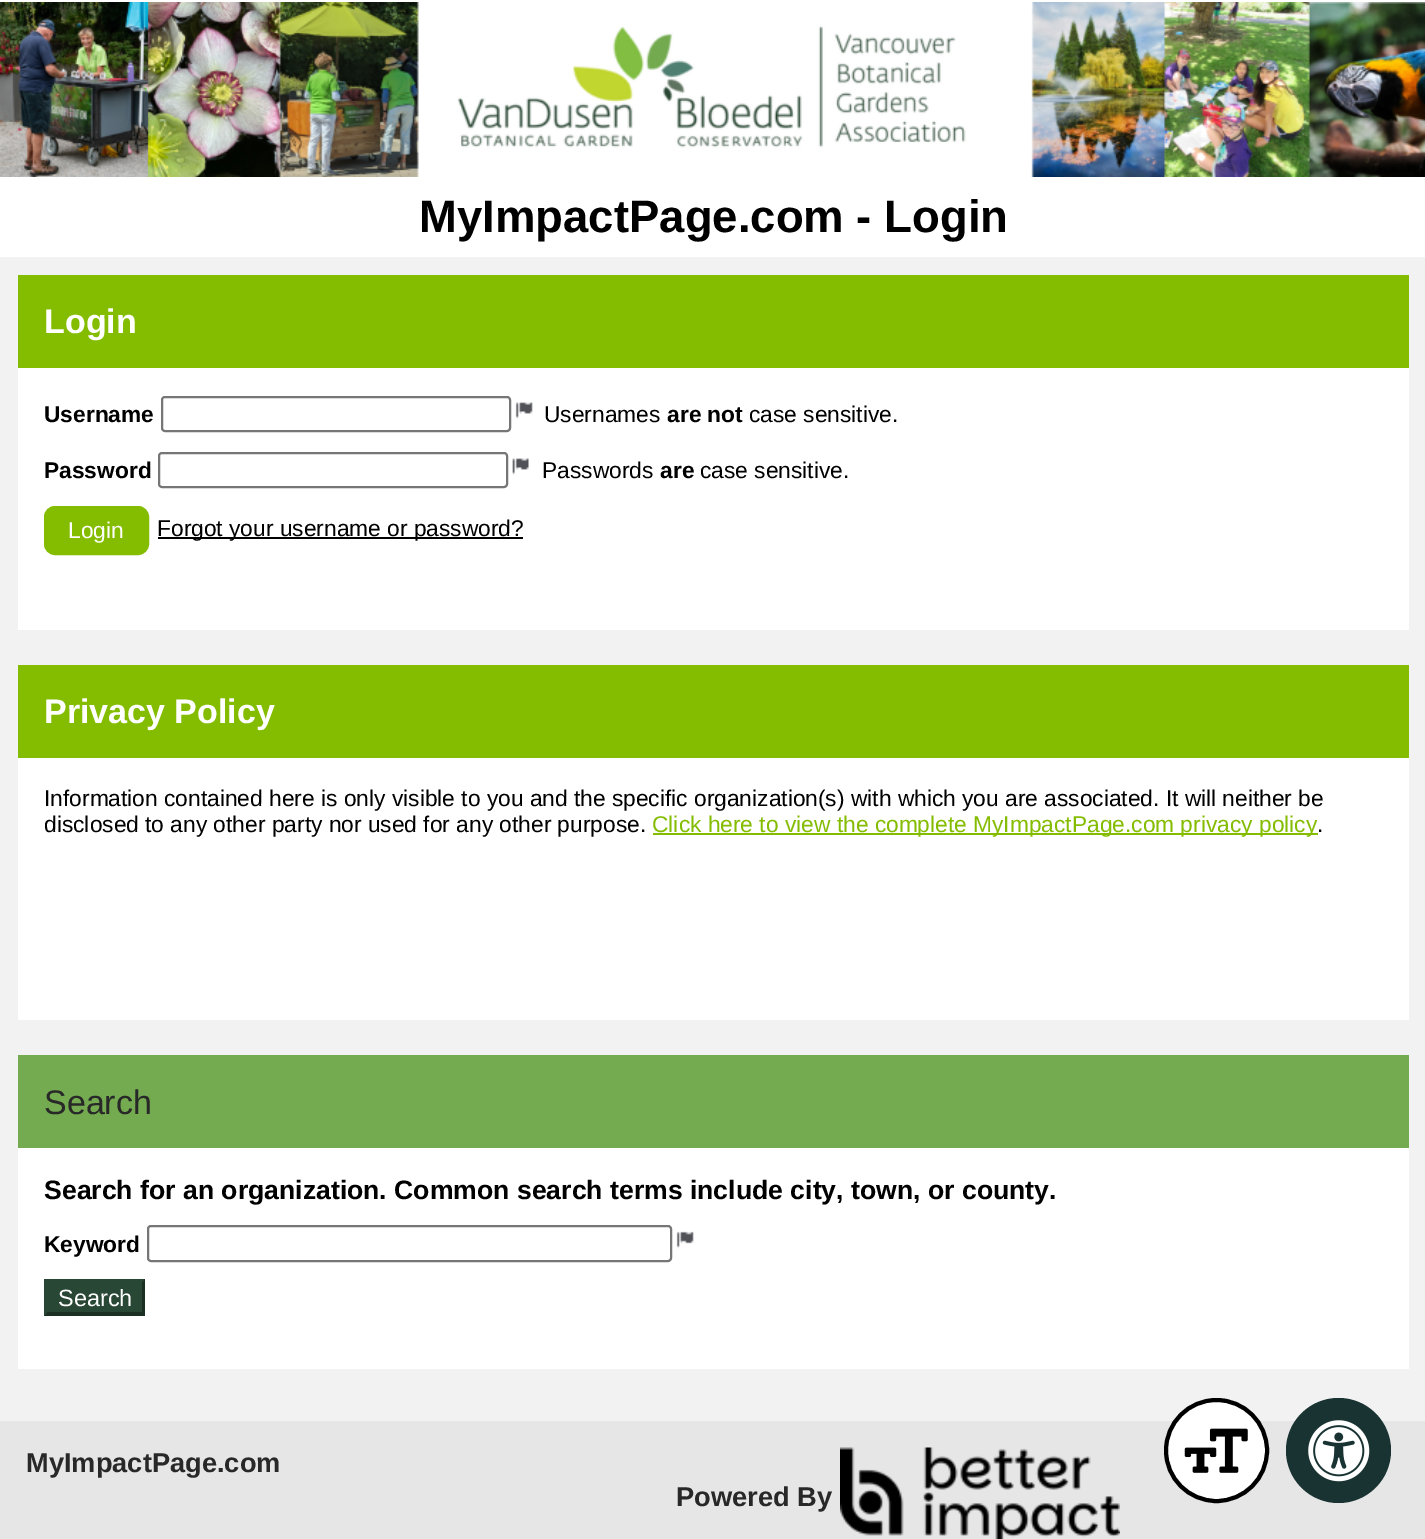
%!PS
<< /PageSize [1425 1539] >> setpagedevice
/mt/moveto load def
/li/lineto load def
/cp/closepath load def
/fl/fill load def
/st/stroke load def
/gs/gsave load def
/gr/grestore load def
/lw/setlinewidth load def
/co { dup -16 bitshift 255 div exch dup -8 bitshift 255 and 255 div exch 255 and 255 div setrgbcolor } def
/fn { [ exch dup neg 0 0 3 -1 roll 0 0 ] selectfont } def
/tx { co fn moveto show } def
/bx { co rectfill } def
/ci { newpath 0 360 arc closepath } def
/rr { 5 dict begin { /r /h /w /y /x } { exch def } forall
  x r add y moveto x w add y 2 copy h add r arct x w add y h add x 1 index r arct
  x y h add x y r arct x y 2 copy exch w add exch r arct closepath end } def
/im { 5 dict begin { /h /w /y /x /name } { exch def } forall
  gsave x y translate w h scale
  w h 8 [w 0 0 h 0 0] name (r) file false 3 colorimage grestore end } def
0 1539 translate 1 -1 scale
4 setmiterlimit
0 0 1425 1539 16#F2F2F2 bx
0 0 1425 2 16#FFFFFF bx
(media/1.raw) 0 2 1425 175 im
0 177 1425 80 16#FFFFFF bx
18 275 1391 93 16#84BD00 bx
18 368 1391 262 16#FFFFFF bx
16#767676 co
2 lw
162 397 348 34 3 rr st
(media/2.raw) 515 402 18 17 im
159 453 348 34 3 rr st
(media/3.raw) 512 458 17 17 im
16#84BD00 co
45 507 103 47 10 rr gs fl gr
st
158 537 365 2 16#000000 bx
18 665 1391 93 16#84BD00 bx
18 758 1391 262 16#FFFFFF bx
653 833 665 2 16#84BD00 bx
18 1055 1391 93 16#74AA50 bx
18 1148 1391 221 16#FFFFFF bx
16#767676 co
148 1226 523 35 3 rr st
(media/4.raw) 676 1231 18 18 im
44 1279 101 37 16#284734 bx
16#1B2F23 co
145 1279 mt 145 1316 li 142 1312.5 li 142 1283 li cp fl
145 1316 mt 44 1316 li 47 1312 li 142 1312 li cp fl
16#284734 co
44 1316 mt 44 1279 li 47 1283 li 47 1312.5 li cp fl
0 1421 1425 118 16#E6E6E6 bx
(media/5.raw) 840 1447 280 92 im
16#FFFFFF co
1216.5 1450.5 50.5 ci gs fl gr
16#000000 co
4 lw
st
(media/6.raw) 1184 1428 64 45 im
16#183331 co
1338.5 1450.5 52.5 ci fl
(media/7.raw) 1308 1420 62 62 im
(MyImpactPage.com - Login) 419 232 /LiberationSans-Bold 45.5 16#000000 tx
(Login) 44 333 /LiberationSans-Bold 34 16#FFFFFF tx
(Username) 44 422 /LiberationSans-Bold 22.75 16#000000 tx
(Usernames) 544 422 /LiberationSans-Regular 22.75 16#000000 tx
(are not) 667 422 /LiberationSans-Bold 22.75 16#000000 tx
(case sensitive.) 749 422 /LiberationSans-Regular 22.75 16#000000 tx
(Password) 44 478 /LiberationSans-Bold 22.75 16#000000 tx
(Passwords) 542 478 /LiberationSans-Regular 22.75 16#000000 tx
(are) 660 478 /LiberationSans-Bold 22.75 16#000000 tx
(case sensitive.) 700 478 /LiberationSans-Regular 22.75 16#000000 tx
(Login) 68 538 /LiberationSans-Regular 22.75 16#FFFFFF tx
(Forgot your username or password?) 157 536 /LiberationSans-Regular 22.75 16#000000 tx
(Privacy Policy) 44 723 /LiberationSans-Bold 34 16#FFFFFF tx
(Information contained here is only visible to you and the specific organization\(s\) with which you are associated. It will neither be) 44 806 /LiberationSans-Regular 22.75 16#000000 tx
(disclosed to any other party nor used for any other purpose.) 44 832 /LiberationSans-Regular 22.75 16#000000 tx
(Click here to view the complete MyImpactPage.com privacy policy) 652 832 /LiberationSans-Regular 22.75 16#84BD00 tx
(.) 1317 832 /LiberationSans-Regular 22.75 16#000000 tx
(Search) 44 1114 /LiberationSans-Regular 34 16#282828 tx
(Search for an organization. Common search terms include city, town, or county.) 44 1199 /LiberationSans-Bold 26.6 16#000000 tx
(Keyword) 44 1252 /LiberationSans-Bold 22.75 16#000000 tx
(Search) 58 1306 /LiberationSans-Regular 23.5 16#FFFFFF tx
(MyImpactPage.com) 26 1472 /LiberationSans-Bold 27.25 16#282828 tx
(Powered By) 676 1506 /LiberationSans-Bold 27.25 16#282828 tx
showpage
